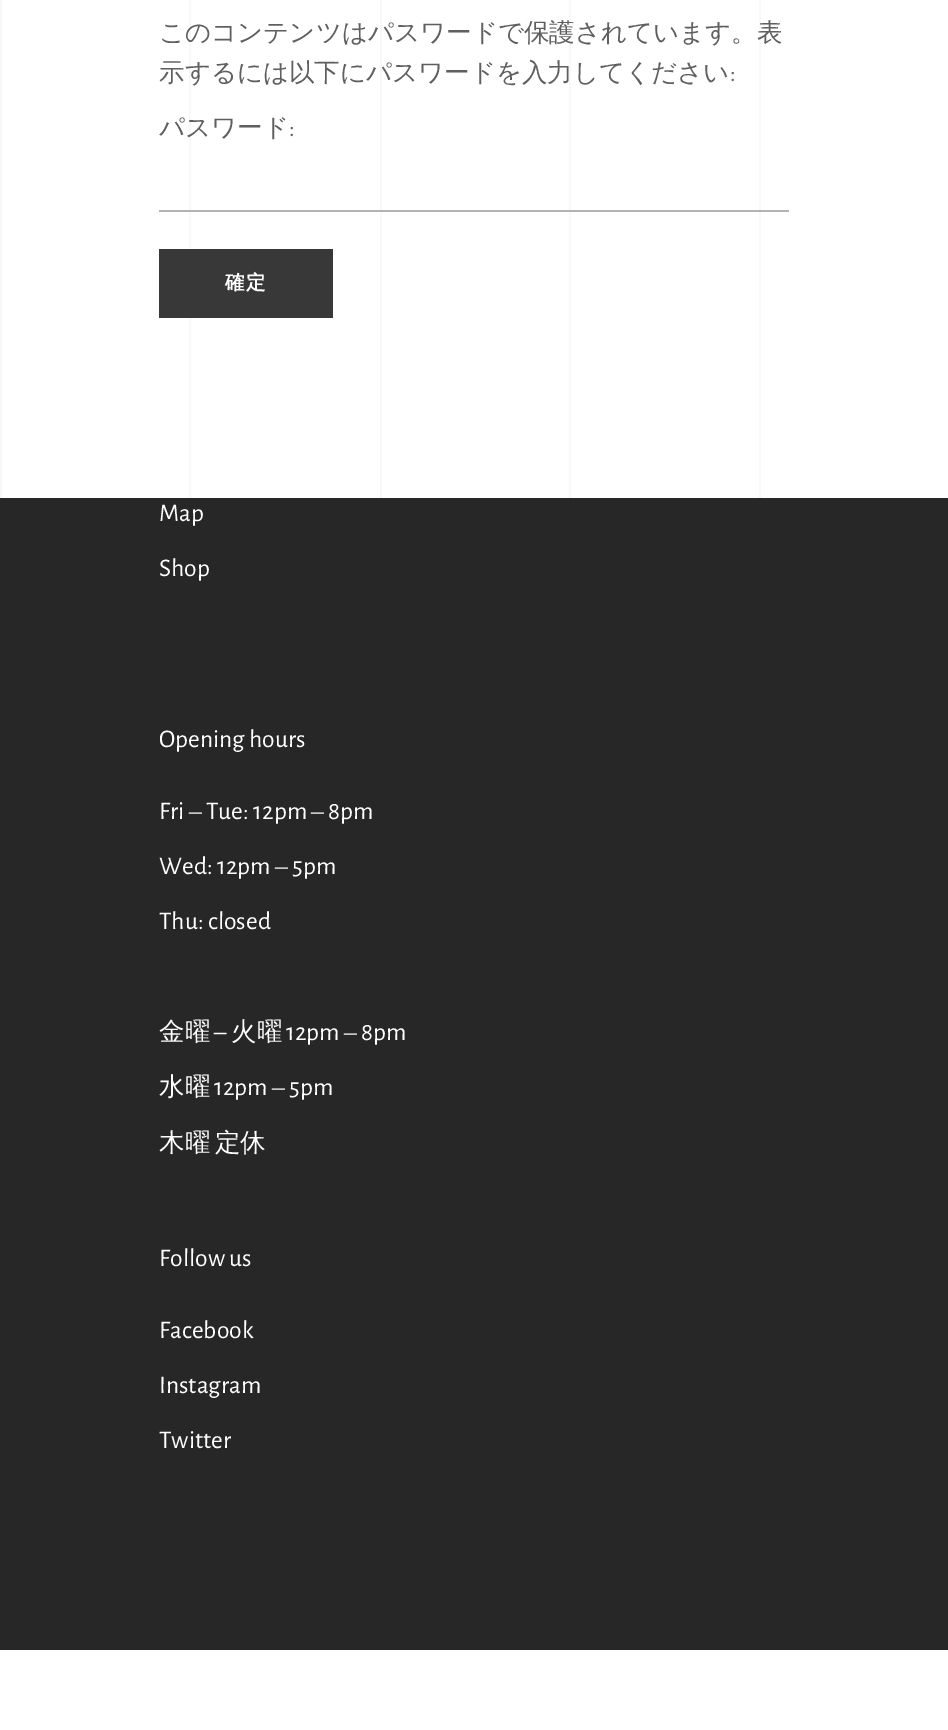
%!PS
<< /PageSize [948 1730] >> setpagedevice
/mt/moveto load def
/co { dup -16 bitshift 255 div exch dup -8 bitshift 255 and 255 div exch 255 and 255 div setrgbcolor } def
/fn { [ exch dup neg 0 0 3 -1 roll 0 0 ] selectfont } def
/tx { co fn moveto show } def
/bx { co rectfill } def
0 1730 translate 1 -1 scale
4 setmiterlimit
0 0 948 1730 16#FFFFFF bx
0 0 2 498 16#F8F8F8 bx
189 0 2 498 16#F8F8F8 bx
380 0 2 498 16#F8F8F8 bx
569 0 2 498 16#F8F8F8 bx
759 0 2 498 16#F8F8F8 bx
159 210 630 2 16#B3B3B3 bx
159 249 174 69 16#383838 bx
0 498 948 1152 16#272727 bx
(このコンテンツはパスワードで保護されています。表) 159 41 /WenQuanYiZenHei-Medium 25.5 16#5F5F5F tx
(示するには以下にパスワードを入力してください) 159 81 /WenQuanYiZenHei-Medium 25.5 16#5F5F5F tx
(:) 730 81 /AlegreyaSans-Regular 25.5 16#5F5F5F tx
(パスワード) 159 136 /WenQuanYiZenHei-Medium 25.5 16#5F5F5F tx
(:) 289 136 /AlegreyaSans-Regular 25.5 16#5F5F5F tx
/WenQuanYiZenHei-Bold 19.5 fn
16#FFFFFF co
225 289 mt 1 0 (確定) ashow
(Map) 159 521 /AlegreyaSans-Regular 25.5 16#FFFFFF tx
(Shop) 159 576 /AlegreyaSans-Regular 25.5 16#FFFFFF tx
(Opening hours) 159 747 /AlegreyaSans-Regular 25.5 16#FFFFFF tx
(Fri) 159 819 /AlegreyaSans-Regular 25.5 16#FFFFFF tx
(‒) 189 819 /LiberationSerif-Regular 25.5 16#FFFFFF tx
(Tue: 12pm) 206 819 /AlegreyaSans-Regular 25.5 16#FFFFFF tx
(‒) 311 819 /LiberationSerif-Regular 25.5 16#FFFFFF tx
(8pm) 328 819 /AlegreyaSans-Regular 25.5 16#FFFFFF tx
(Wed: 12pm) 159 874 /AlegreyaSans-Regular 25.5 16#FFFFFF tx
(‒) 275 874 /LiberationSerif-Regular 25.5 16#FFFFFF tx
(5pm) 292 874 /AlegreyaSans-Regular 25.5 16#FFFFFF tx
(Thu: closed) 159 929 /AlegreyaSans-Regular 25.5 16#FFFFFF tx
(金曜) 159 1040 /WenQuanYiZenHei-Medium 25.5 16#FFFFFF tx
(–) 214 1040 /AlegreyaSans-Regular 25.5 16#FFFFFF tx
(火曜) 231 1040 /WenQuanYiZenHei-Medium 25.5 16#FFFFFF tx
(12pm) 286 1040 /AlegreyaSans-Regular 25.5 16#FFFFFF tx
(‒) 344 1040 /LiberationSerif-Regular 25.5 16#FFFFFF tx
(8pm) 361 1040 /AlegreyaSans-Regular 25.5 16#FFFFFF tx
(水曜) 159 1095 /WenQuanYiZenHei-Medium 25.5 16#FFFFFF tx
(12pm) 214 1095 /AlegreyaSans-Regular 25.5 16#FFFFFF tx
(‒) 272 1095 /LiberationSerif-Regular 25.5 16#FFFFFF tx
(5pm) 289 1095 /AlegreyaSans-Regular 25.5 16#FFFFFF tx
/WenQuanYiZenHei-Medium 25.5 fn
159 1151 mt -3 0 32 (木曜 定休) widthshow
(Follow us) 159 1266 /AlegreyaSans-Regular 25.5 16#FFFFFF tx
(Facebook) 159 1338 /AlegreyaSans-Regular 25.5 16#FFFFFF tx
(Instagram) 159 1393 /AlegreyaSans-Regular 25.5 16#FFFFFF tx
(Twitter) 159 1448 /AlegreyaSans-Regular 25.5 16#FFFFFF tx
showpage
